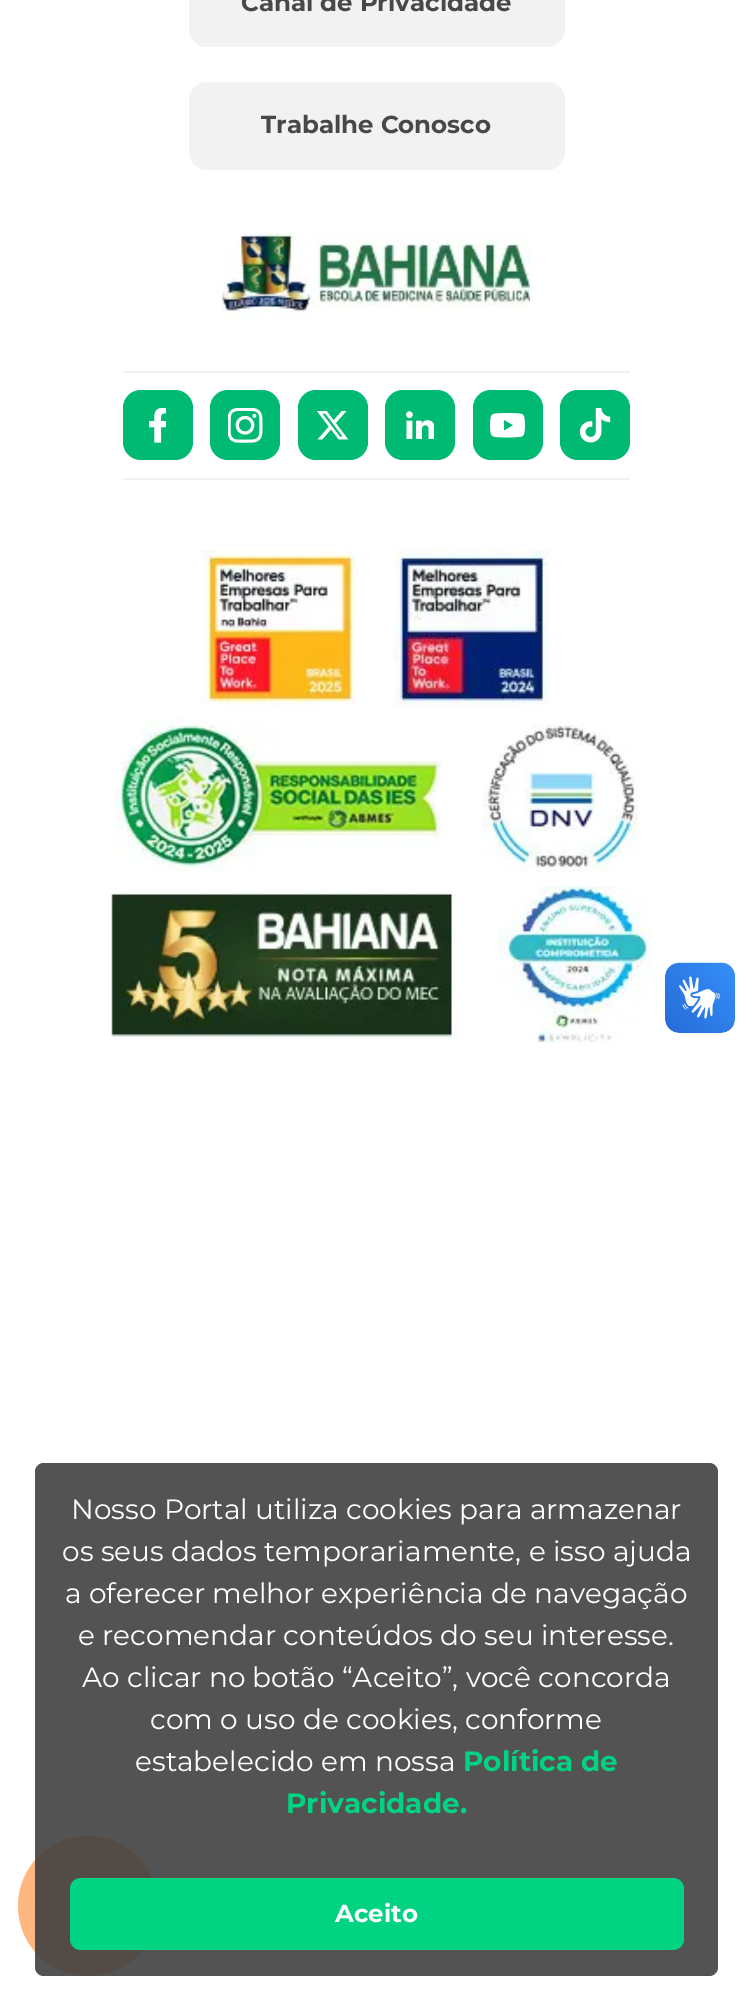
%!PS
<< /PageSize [752 1992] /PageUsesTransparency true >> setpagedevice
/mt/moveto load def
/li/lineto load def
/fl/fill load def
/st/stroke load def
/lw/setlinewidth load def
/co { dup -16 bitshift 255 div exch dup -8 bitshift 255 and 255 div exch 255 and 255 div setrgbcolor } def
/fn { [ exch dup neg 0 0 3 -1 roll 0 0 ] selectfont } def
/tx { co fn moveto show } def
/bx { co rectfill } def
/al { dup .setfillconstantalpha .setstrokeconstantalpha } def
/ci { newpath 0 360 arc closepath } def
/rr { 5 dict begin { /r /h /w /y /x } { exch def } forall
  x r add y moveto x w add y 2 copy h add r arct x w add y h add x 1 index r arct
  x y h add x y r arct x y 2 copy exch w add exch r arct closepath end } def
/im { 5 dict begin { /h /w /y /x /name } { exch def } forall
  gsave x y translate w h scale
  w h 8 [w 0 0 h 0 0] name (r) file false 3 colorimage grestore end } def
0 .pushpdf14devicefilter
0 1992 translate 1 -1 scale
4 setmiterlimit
0 0 752 1992 16#FFFFFF bx
16#F2F2F2 co
189 -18 376 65 18 rr fl
189 82 376 88 18 rr fl
(media/1.raw) 222 231 309 89 im
123 371 507 2 16#F2F2F2 bx
123 478 507 2 16#F2F2F2 bx
16#00BA73 co
123 390 70 70 18 rr fl
(media/2.raw) 149 408 17 35 im
210 390 70 70 18 rr fl
(media/3.raw) 228 408 35 35 im
298 390 70 70 18 rr fl
(media/4.raw) 317 411 32 29 im
385 390 70 70 18 rr fl
(media/5.raw) 406 411 28 28 im
473 390 70 70 18 rr fl
(media/6.raw) 490 413 35 25 im
560 390 70 70 18 rr fl
(media/7.raw) 579 408 32 35 im
(media/8.raw) 201 550 157 157 im
(media/9.raw) 394 550 157 157 im
(media/10.raw) 114 718 328 155 im
(media/11.raw) 483 724 156 149 im
(media/12.raw) 111 891 348 149 im
(media/13.raw) 499 886 154 157 im
16#FFB782 co
88 1906 70 ci fl
16#FFFFFF co
4.4 lw
1 setlinecap
1 setlinejoin
87.5 1898.5 mt 87.5 1878 li 77.5 1888 mt 87.5 1878 li 97.5 1888 li st
0.9 al
16#404040 co
35 1463 683 513 9 rr fl
1 al
16#00D382 co
70 1878 614 72 11 rr fl
(media/14.raw) 665 962 70 71 im
(media/15.raw) 665 963 70 70 im
(Canal de Privacidade) 241 11 /Montserrat-Bold 24.5 16#484848 tx
(Trabalhe Conosco) 261 133 /Montserrat-Bold 24.5 16#484848 tx
(Nosso Portal utiliza cookies para armazenar) 71 1519 /Montserrat-Regular 28 16#FFFFFF tx
(os seus dados temporariamente, e isso ajuda) 62 1561 /Montserrat-Regular 28 16#FFFFFF tx
(a oferecer melhor experiência de navegação) 65 1603 /Montserrat-Regular 28 16#FFFFFF tx
(e recomendar conteúdos do seu interesse.) 78 1645 /Montserrat-Regular 28 16#FFFFFF tx
(Ao clicar no botão “Aceito”, você concorda) 82 1687 /Montserrat-Regular 28 16#FFFFFF tx
(com o uso de cookies, conforme) 150 1729 /Montserrat-Regular 28 16#FFFFFF tx
(estabelecido em nossa) 135 1771 /Montserrat-Regular 28 16#FFFFFF tx
(Política de) 463 1771 /Montserrat-Bold 28 16#00D382 tx
(Privacidade.) 286 1813 /Montserrat-Bold 28 16#00D382 tx
(Aceito) 335 1922 /Montserrat-Bold 24.5 16#FFFFFF tx
.poppdf14devicefilter showpage
